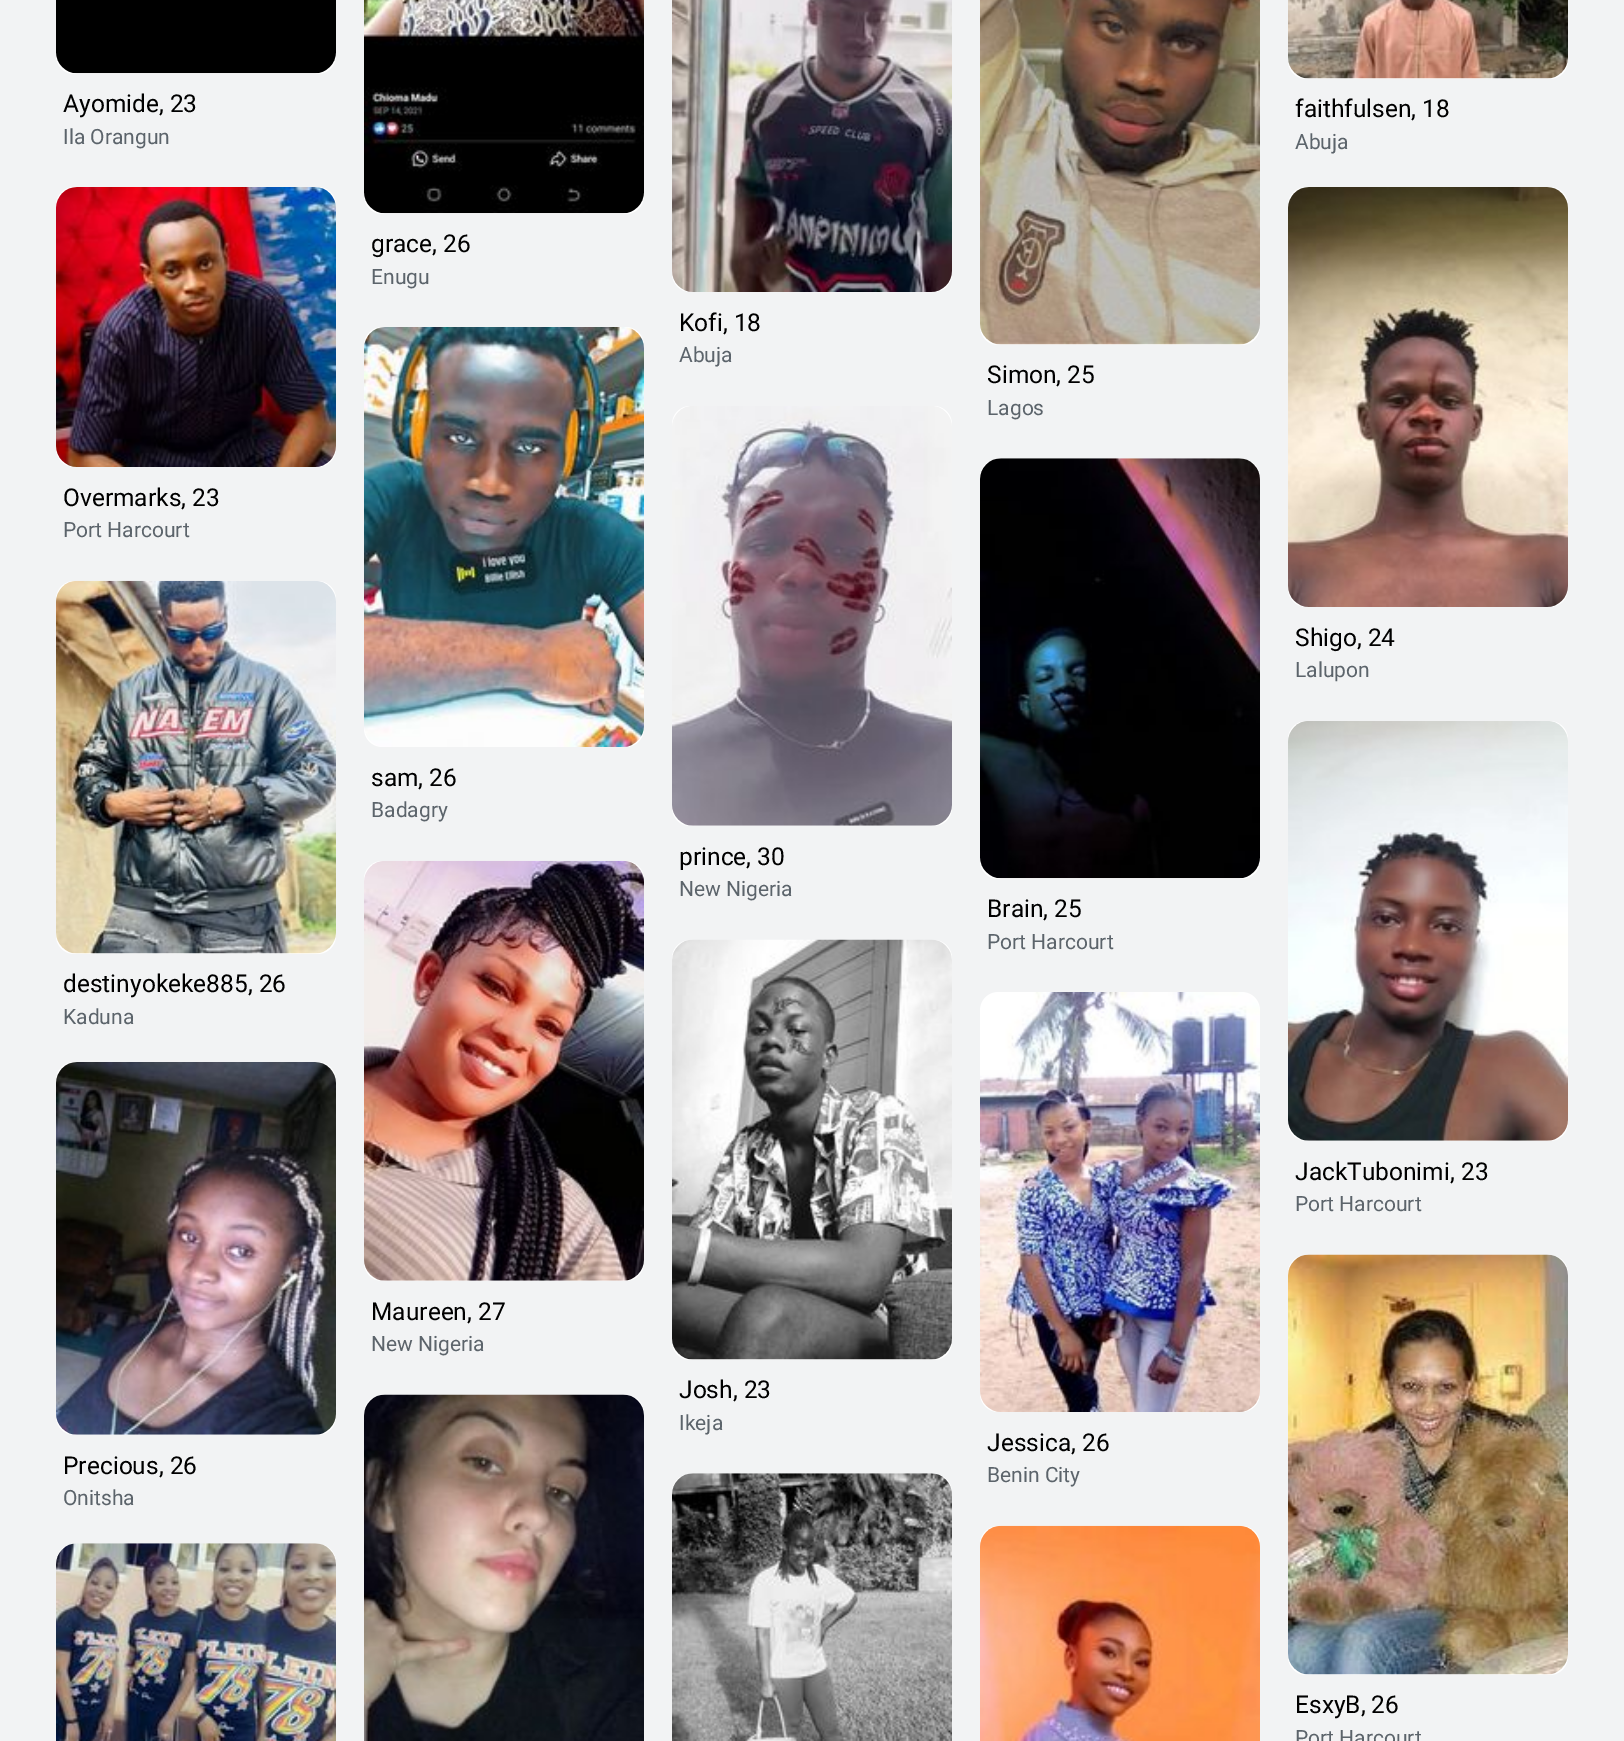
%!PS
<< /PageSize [1624 1741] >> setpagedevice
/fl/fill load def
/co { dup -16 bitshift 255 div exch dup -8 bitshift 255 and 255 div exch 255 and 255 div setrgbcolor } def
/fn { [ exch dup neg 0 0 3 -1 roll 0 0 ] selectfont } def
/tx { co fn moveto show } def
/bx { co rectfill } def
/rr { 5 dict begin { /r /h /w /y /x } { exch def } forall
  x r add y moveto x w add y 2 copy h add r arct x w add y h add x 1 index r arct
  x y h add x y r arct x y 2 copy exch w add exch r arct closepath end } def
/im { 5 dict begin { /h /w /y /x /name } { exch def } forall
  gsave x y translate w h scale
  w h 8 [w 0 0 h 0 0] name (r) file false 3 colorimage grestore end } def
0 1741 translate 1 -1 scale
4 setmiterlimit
0 0 1624 1741 16#F2F3F4 bx
16#FFFFFF co
56 -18 280 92 18 rr fl
(media/1.raw) 56 0 280 74 im
1288 -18 280 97 18 rr fl
(media/2.raw) 1288 0 280 79 im
364 -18 280 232 18 rr fl
(media/3.raw) 364 0 280 214 im
672 -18 280 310 18 rr fl
(media/4.raw) 672 0 280 292 im
980 -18 280 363 18 rr fl
(media/5.raw) 980 0 280 345 im
56 187 280 280 18 rr fl
(media/6.raw) 56 187 280 280 im
1288 187 280 420 18 rr fl
(media/7.raw) 1288 187 280 420 im
364 327 280 420 18 rr fl
(media/8.raw) 364 327 280 420 im
672 406 280 420 18 rr fl
(media/9.raw) 672 406 280 420 im
980 459 280 420 18 rr fl
(media/10.raw) 980 458 280 421 im
56 581 280 373 18 rr fl
(media/11.raw) 56 580 280 374 im
1288 721 280 420 18 rr fl
(media/12.raw) 1288 721 280 420 im
364 861 280 420 18 rr fl
(media/13.raw) 364 860 280 421 im
56 1062 280 373 18 rr fl
(media/14.raw) 56 1062 280 373 im
364 1395 280 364 18 rr fl
(media/15.raw) 364 1394 280 347 im
672 940 280 420 18 rr fl
(media/16.raw) 672 939 280 421 im
980 992 280 420 18 rr fl
(media/17.raw) 980 992 280 420 im
56 1544 280 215 18 rr fl
(media/18.raw) 56 1543 280 198 im
672 1474 280 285 18 rr fl
(media/19.raw) 672 1473 280 268 im
980 1526 280 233 18 rr fl
(media/20.raw) 980 1525 280 216 im
1288 1255 280 420 18 rr fl
(media/21.raw) 1288 1254 280 421 im
(Ayomide, 23) 63 112 /Roboto-Regular 24.5 16#000000 tx
(Ila Orangun) 63 144 /Roboto-Regular 21 16#5C646B tx
(faithfulsen, 18) 1295 117 /Roboto-Regular 24.5 16#000000 tx
(Abuja) 1295 149 /Roboto-Regular 21 16#5C646B tx
(grace, 26) 371 252 /Roboto-Regular 24.5 16#000000 tx
(Enugu) 371 284 /Roboto-Regular 21 16#5C646B tx
(Kofi, 18) 679 331 /Roboto-Regular 24.5 16#000000 tx
(Abuja) 679 362 /Roboto-Regular 21 16#5C646B tx
(Simon, 25) 987 383 /Roboto-Regular 24.5 16#000000 tx
(Lagos) 987 415 /Roboto-Regular 21 16#5C646B tx
(Overmarks, 23) 63 506 /Roboto-Regular 24.5 16#000000 tx
(Port Harcourt) 63 537 /Roboto-Regular 21 16#5C646B tx
(Shigo, 24) 1295 646 /Roboto-Regular 24.5 16#000000 tx
(Lalupon) 1295 677 /Roboto-Regular 21 16#5C646B tx
(sam, 26) 371 786 /Roboto-Regular 24.5 16#000000 tx
(Badagry) 371 817 /Roboto-Regular 21 16#5C646B tx
(prince, 30) 679 865 /Roboto-Regular 24.5 16#000000 tx
(New Nigeria) 679 896 /Roboto-Regular 21 16#5C646B tx
(Brain, 25) 987 917 /Roboto-Regular 24.5 16#000000 tx
(Port Harcourt) 987 949 /Roboto-Regular 21 16#5C646B tx
(destinyokeke885, 26) 63 992 /Roboto-Regular 24.5 16#000000 tx
(Kaduna) 63 1024 /Roboto-Regular 21 16#5C646B tx
(JackTubonimi, 23) 1295 1180 /Roboto-Regular 24.5 16#000000 tx
(Port Harcourt) 1295 1211 /Roboto-Regular 21 16#5C646B tx
(Maureen, 27) 371 1320 /Roboto-Regular 24.5 16#000000 tx
(New Nigeria) 371 1351 /Roboto-Regular 21 16#5C646B tx
(Precious, 26) 63 1474 /Roboto-Regular 24.5 16#000000 tx
(Onitsha) 63 1505 /Roboto-Regular 21 16#5C646B tx
(Josh, 23) 679 1398 /Roboto-Regular 24.5 16#000000 tx
(Ikeja) 679 1430 /Roboto-Regular 21 16#5C646B tx
(Jessica, 26) 987 1451 /Roboto-Regular 24.5 16#000000 tx
(Benin City) 987 1482 /Roboto-Regular 21 16#5C646B tx
(EsxyB, 26) 1295 1713 /Roboto-Regular 24.5 16#000000 tx
(Port Harcourt) 1295 1745 /Roboto-Regular 21 16#5C646B tx
showpage
